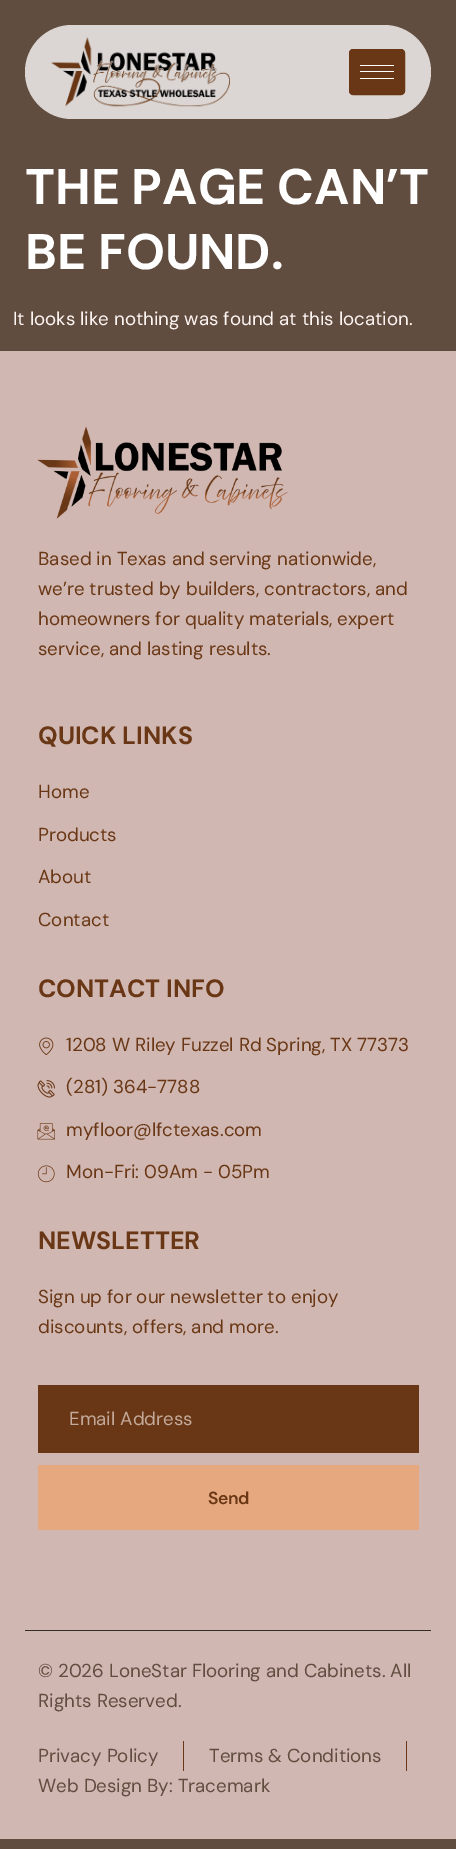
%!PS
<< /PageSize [456 1849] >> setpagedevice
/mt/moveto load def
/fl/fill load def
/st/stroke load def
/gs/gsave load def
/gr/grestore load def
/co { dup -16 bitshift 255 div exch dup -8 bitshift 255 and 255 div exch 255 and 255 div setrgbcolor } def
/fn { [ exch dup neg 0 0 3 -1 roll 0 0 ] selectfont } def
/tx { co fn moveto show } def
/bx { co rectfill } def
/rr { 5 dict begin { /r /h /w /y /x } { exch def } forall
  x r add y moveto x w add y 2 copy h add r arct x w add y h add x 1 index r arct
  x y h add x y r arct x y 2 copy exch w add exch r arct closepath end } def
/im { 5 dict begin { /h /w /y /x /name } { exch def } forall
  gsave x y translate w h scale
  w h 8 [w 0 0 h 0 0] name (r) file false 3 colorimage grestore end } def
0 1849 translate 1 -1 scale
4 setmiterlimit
0 0 456 1849 16#614D40 bx
16#DBD6D3 co
25 25 406 94 47 rr fl
(media/1.raw) 51 37 179 70 im
16#693715 co
349.5 49.5 55 45 3.5 rr gs fl gr
st
360 65 34 1 16#FFFFFF bx
360 71 34 1 16#FFFFFF bx
360 78 34 1 16#FFFFFF bx
0 351 456 1488 16#D1B7B1 bx
(media/2.raw) 37 426 251 93 im
(media/3.raw) 39 1037 15 19 im
(media/4.raw) 37 1080 18 18 im
(media/5.raw) 37 1123 18 17 im
(media/6.raw) 37 1165 18 18 im
38 1385 381 68 16#693715 bx
38 1465 381 65 16#E6A87E bx
25 1630 406 1 16#332C27 bx
183 1741 1 30 16#693715 bx
406 1741 1 30 16#693715 bx
(THE PAGE CAN’T) 25 204 /DMSans-Bold 50 16#FFFFFF tx
(BE FOUND.) 25 269 /DMSans-Bold 50 16#FFFFFF tx
(It looks like nothing was found at this location.) 13 325 /DMSans-Regular 18.75 16#FFF6F4 tx
(Based in Texas and serving nationwide,) 38 565 /DMSans-Regular 18.75 16#693715 tx
(we’re trusted by builders, contractors, and) 38 595 /DMSans-Regular 18.75 16#693715 tx
(homeowners for quality materials, expert) 38 625 /DMSans-Regular 18.75 16#693715 tx
(service, and lasting results.) 38 655 /DMSans-Regular 18.75 16#693715 tx
(QUICK LINKS) 38 744 /DMSans-Bold 25 16#693715 tx
(Home) 38 798 /DMSans-Regular 18.75 16#693715 tx
(Products) 38 841 /DMSans-Regular 18.75 16#693715 tx
(About) 38 883 /DMSans-Regular 18.75 16#693715 tx
(Contact) 38 926 /DMSans-Regular 18.75 16#693715 tx
(CONTACT INFO) 38 997 /DMSans-Bold 25 16#693715 tx
(1208 W Riley Fuzzel Rd Spring, TX 77373) 66 1051 /DMSans-Regular 18.75 16#693715 tx
(\(281\) 364-7788) 66 1093 /DMSans-Regular 18.75 16#693715 tx
(myfloor@lfctexas.com) 66 1136 /DMSans-Regular 18.75 16#693715 tx
(Mon-Fri: 09Am - 05Pm) 66 1178 /DMSans-Regular 18.75 16#693715 tx
(NEWSLETTER) 38 1249 /DMSans-Bold 25 16#693715 tx
(Sign up for our newsletter to enjoy) 38 1303 /DMSans-Regular 18.75 16#693715 tx
(discounts, offers, and more.) 38 1333 /DMSans-Regular 18.75 16#693715 tx
(Email Address) 69 1425 /DMSans-Regular 18.75 16#C3AA9B tx
/DMSans-SemiBold 17.5 fn
16#693715 co
208 1504 mt -.5 0 (Send) ashow
(© 2026 LoneStar Flooring and Cabinets. All) 38 1677 /DMSans-Regular 18.75 16#614D40 tx
(Rights Reserved.) 38 1707 /DMSans-Regular 18.75 16#614D40 tx
(Privacy Policy) 38 1762 /DMSans-Regular 18.75 16#614D40 tx
(Terms & Conditions) 209 1762 /DMSans-Regular 18.75 16#614D40 tx
(Web Design By: Tracemark) 38 1792 /DMSans-Regular 18.75 16#614D40 tx
showpage
